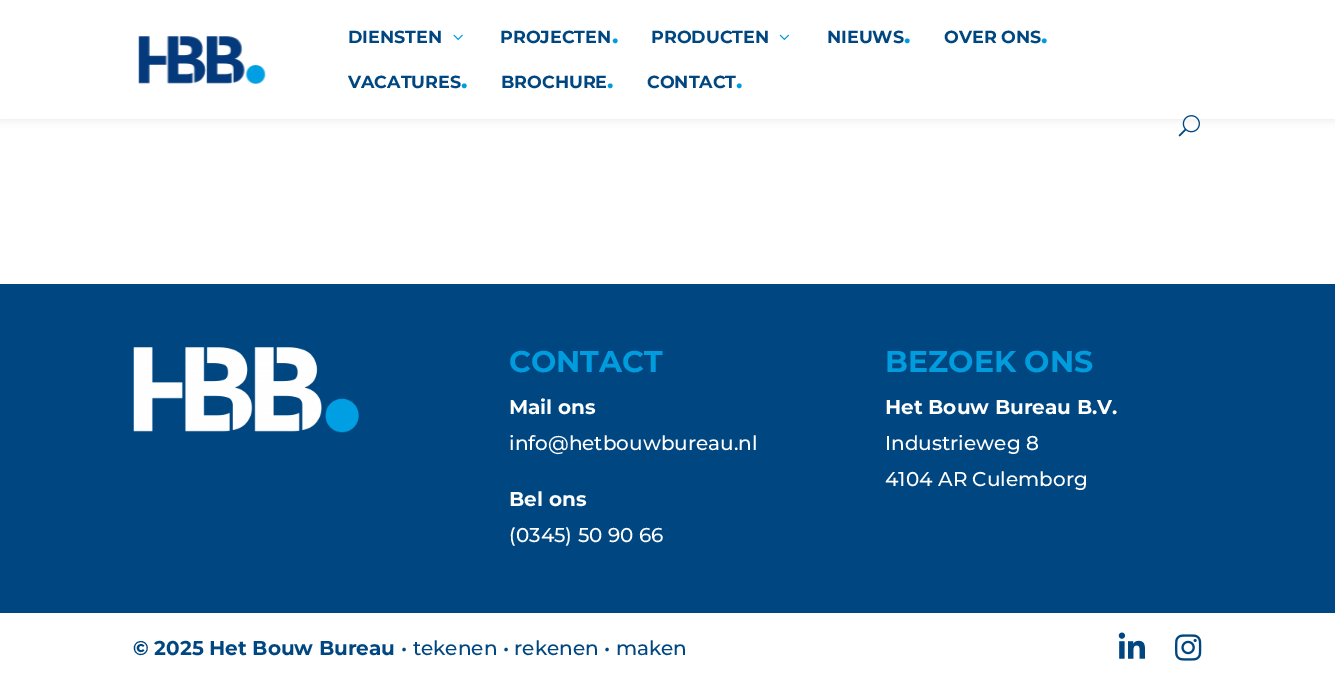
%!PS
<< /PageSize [1335 686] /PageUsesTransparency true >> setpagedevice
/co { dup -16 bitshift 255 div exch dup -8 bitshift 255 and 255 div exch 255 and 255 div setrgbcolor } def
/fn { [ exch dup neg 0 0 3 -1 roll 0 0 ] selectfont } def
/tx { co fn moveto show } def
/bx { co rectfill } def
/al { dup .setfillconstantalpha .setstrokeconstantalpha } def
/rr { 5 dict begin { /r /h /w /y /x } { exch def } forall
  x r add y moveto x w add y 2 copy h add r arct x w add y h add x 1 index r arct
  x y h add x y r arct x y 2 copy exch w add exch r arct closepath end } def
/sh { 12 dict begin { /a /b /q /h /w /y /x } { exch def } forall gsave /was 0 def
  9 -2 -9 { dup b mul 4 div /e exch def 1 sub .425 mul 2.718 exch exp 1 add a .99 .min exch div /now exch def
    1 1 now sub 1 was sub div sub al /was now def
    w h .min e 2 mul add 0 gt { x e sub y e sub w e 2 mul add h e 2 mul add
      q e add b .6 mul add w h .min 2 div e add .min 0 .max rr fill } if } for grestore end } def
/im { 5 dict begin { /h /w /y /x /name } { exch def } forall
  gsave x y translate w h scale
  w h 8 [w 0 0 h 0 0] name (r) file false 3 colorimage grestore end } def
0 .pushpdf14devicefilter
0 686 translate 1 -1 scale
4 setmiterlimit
0 0 1335 686 16#FFFFFF bx
16#000000 co
0 0 1335 119 0 4.5 .1 sh
0 0 1335 119 16#FFFFFF bx
(media/1.raw) 138 36 128 48 im
(media/2.raw) 453 34 10 6 im
(media/3.raw) 779 34 10 6 im
(media/4.raw) 1178 115 22 22 im
0 284 1335 329 16#004680 bx
(media/5.raw) 133 347 226 86 im
(media/6.raw) 1118 632 27 27 im
(media/7.raw) 1175 634 27 27 im
(DIENSTEN) 348 43 /Montserrat-Bold 17.5 16#004680 tx
(PROJECTEN) 500 43 /Montserrat-Bold 17.5 16#004680 tx
(.) 612 43 /Montserrat-Bold 25 16#009CDD tx
(PRODUCTEN) 651 43 /Montserrat-Bold 17.5 16#004680 tx
(NIEUWS) 827 43 /Montserrat-Bold 17.5 16#004680 tx
(.) 904 43 /Montserrat-Bold 25 16#009CDD tx
(OVER ONS) 944 43 /Montserrat-Bold 17.5 16#004680 tx
(.) 1041 43 /Montserrat-Bold 25 16#009CDD tx
(VACATURES) 348 88 /Montserrat-Bold 17.5 16#004680 tx
(.) 461 88 /Montserrat-Bold 25 16#009CDD tx
(BROCHURE) 501 88 /Montserrat-Bold 17.5 16#004680 tx
(.) 607 88 /Montserrat-Bold 25 16#009CDD tx
(CONTACT) 647 88 /Montserrat-Bold 17.5 16#004680 tx
(.) 736 88 /Montserrat-Bold 25 16#009CDD tx
(CONTACT) 509 372 /Montserrat-Bold 30 16#009CDD tx
(Mail ons) 509 414 /Montserrat-Bold 20 16#FFFFFF tx
(info@hetbouwbureau.nl) 509 450 /Montserrat-Medium 20 16#FFFFFF tx
(Bel ons) 509 506 /Montserrat-Bold 20 16#FFFFFF tx
(\(0345\) 50 90 66) 509 542 /Montserrat-Medium 20 16#FFFFFF tx
(BEZOEK ONS) 885 372 /Montserrat-Bold 30 16#009CDD tx
(Het Bouw Bureau B.V.) 885 414 /Montserrat-Bold 20 16#FFFFFF tx
(Industrieweg 8) 885 450 /Montserrat-Medium 20 16#FFFFFF tx
(4104 AR Culemborg) 885 486 /Montserrat-Medium 20 16#FFFFFF tx
(© 2025 Het Bouw Bureau) 133 655 /Montserrat-Bold 20 16#004680 tx
(• tekenen • rekenen • maken) 401 655 /Montserrat-Medium 20 16#004680 tx
.poppdf14devicefilter showpage
